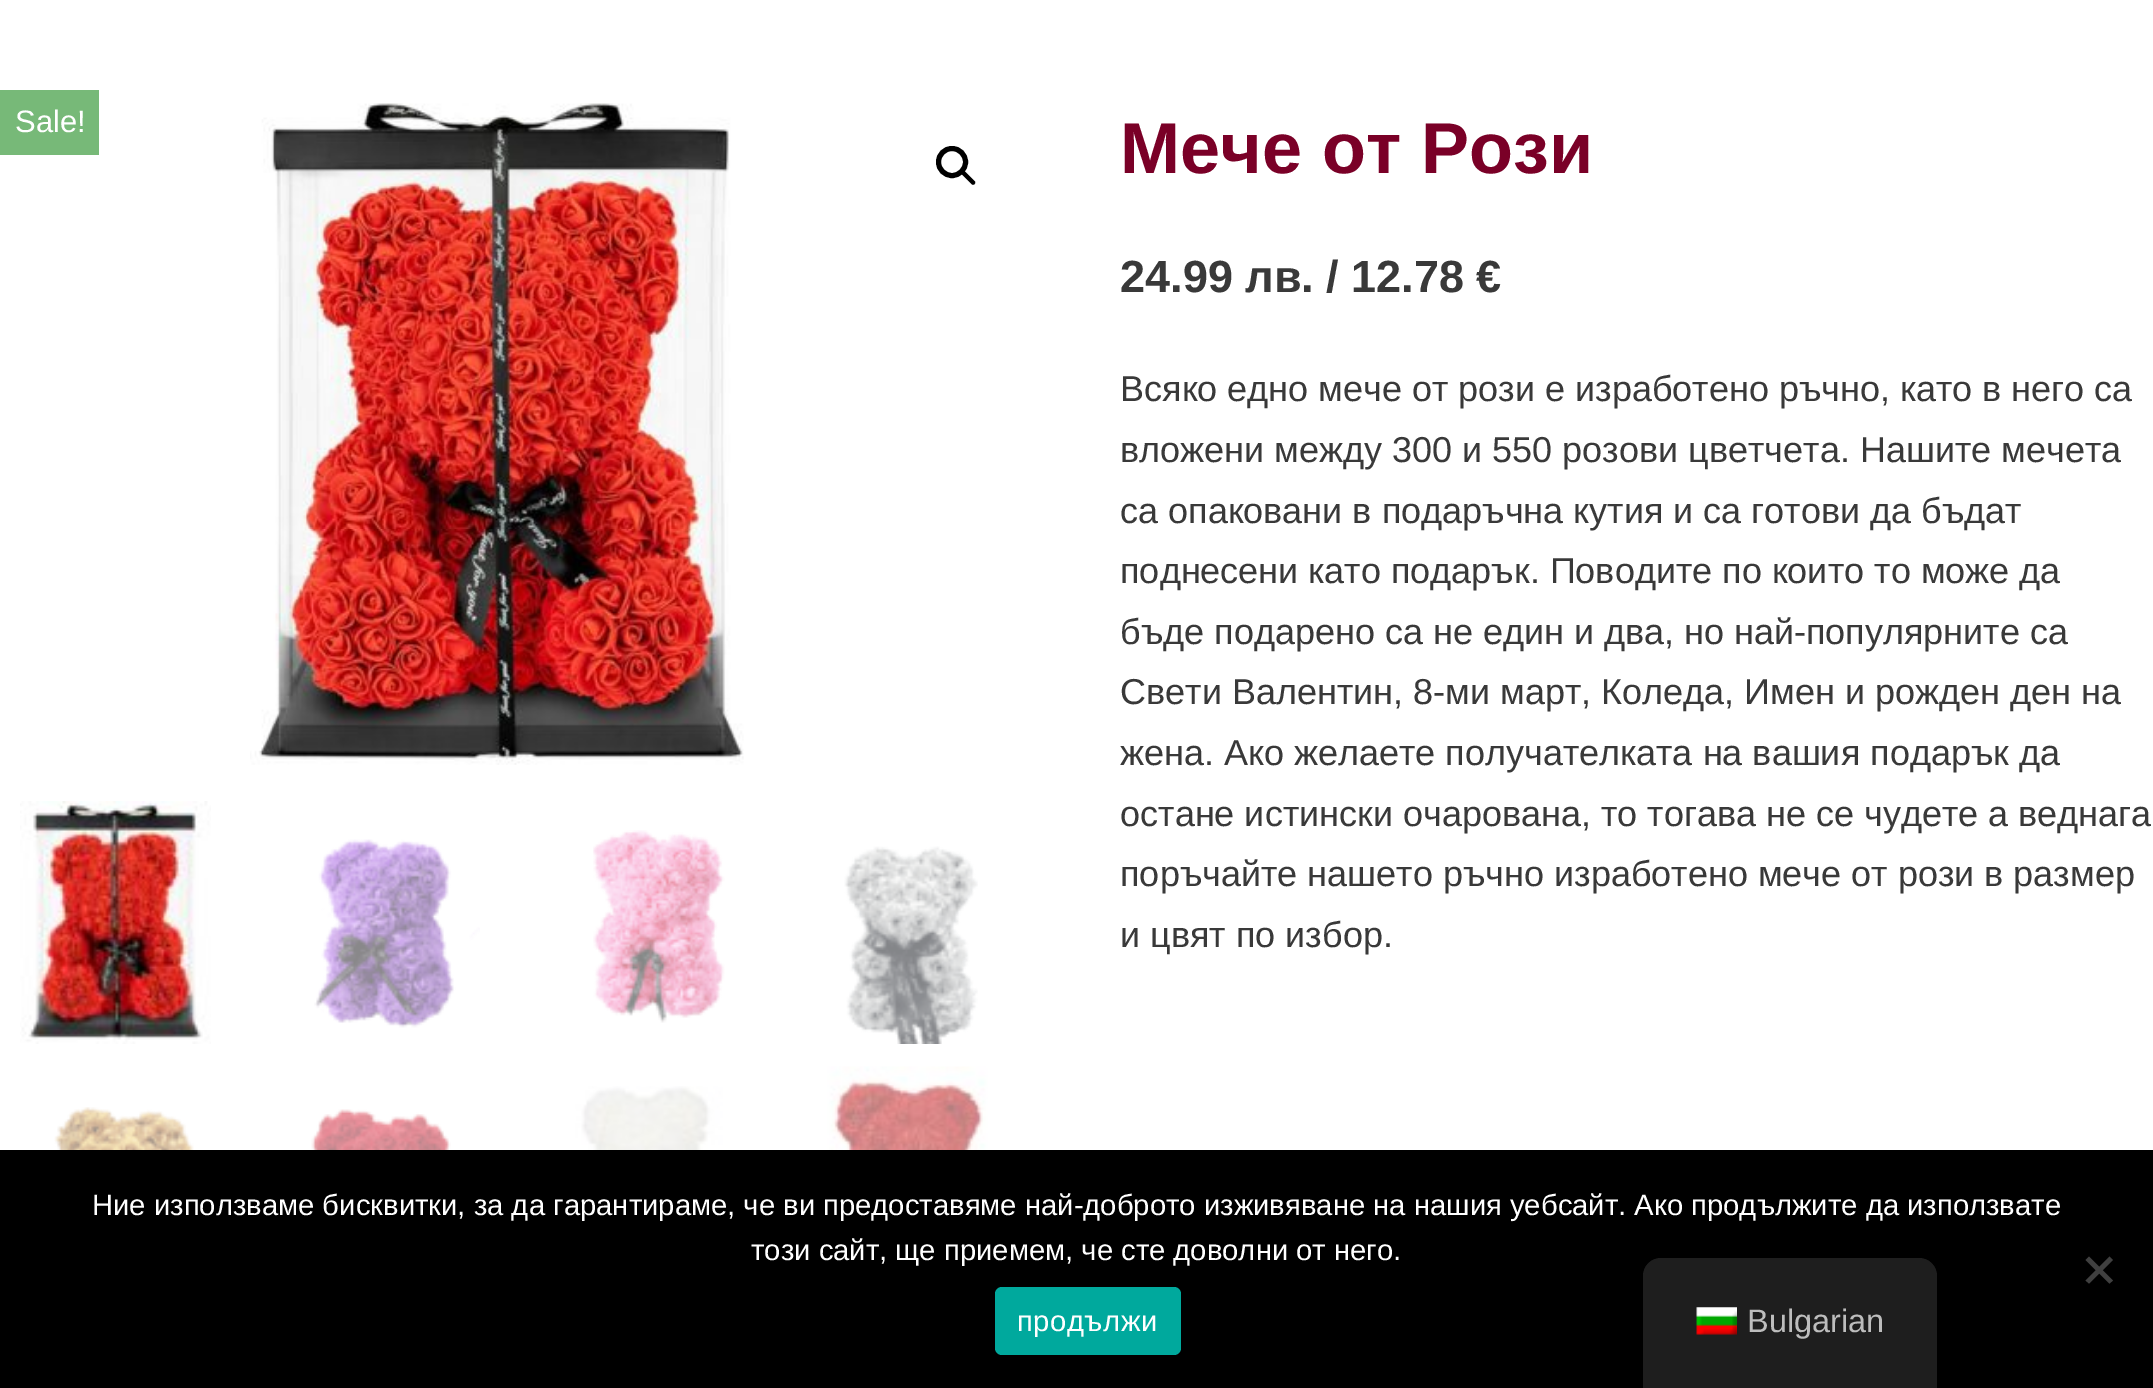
%!PS
<< /PageSize [2153 1388] >> setpagedevice
/mt/moveto load def
/li/lineto load def
/ct/curveto load def
/cp/closepath load def
/fl/fill load def
/st/stroke load def
/lw/setlinewidth load def
/co { dup -16 bitshift 255 div exch dup -8 bitshift 255 and 255 div exch 255 and 255 div setrgbcolor } def
/fn { [ exch dup neg 0 0 3 -1 roll 0 0 ] selectfont } def
/tx { co fn moveto show } def
/bx { co rectfill } def
/ci { newpath 0 360 arc closepath } def
/rr { 5 dict begin { /r /h /w /y /x } { exch def } forall
  x r add y moveto x w add y 2 copy h add r arct x w add y h add x 1 index r arct
  x y h add x y r arct x y 2 copy exch w add exch r arct closepath end } def
/im { 5 dict begin { /h /w /y /x /name } { exch def } forall
  gsave x y translate w h scale
  w h 8 [w 0 0 h 0 0] name (r) file false 3 colorimage grestore end } def
0 1388 translate 1 -1 scale
4 setmiterlimit
0 0 2153 1388 16#FFFFFF bx
(media/1.raw) 250 103 494 662 im
16#000000 co
5 lw
952 162 13.5 ci st
962 171.5 mt 963 170.5 964 170.5 965 171.5 ct 974.5 181 li 975.5 182 975.5 183 974.5 184 ct 974 185 972.5 185 971.5 184 ct 962 174.5 li 961 173.5 961 172.5 962 171.5 ct cp fl
(media/2.raw) 20 801 191 243 im
(media/3.raw) 314 839 166 189 im
(media/4.raw) 593 830 132 193 im
(media/5.raw) 844 846 134 198 im
(media/6.raw) 54 1107 140 43 im
(media/7.raw) 311 1109 140 41 im
(media/8.raw) 575 1086 148 64 im
(media/9.raw) 799 1066 225 84 im
0 90 99 65 16#77B978 bx
0 1150 2153 238 16#000000 bx
16#404040 co
2109.5 1256.5 mt 2113 1260 li 2089 1283.5 li 2085.5 1280.5 li cp fl
2085.5 1260 mt 2089 1256.5 li 2113 1280.5 li 2109.5 1283.5 li cp fl
16#00A99D co
995 1287 186 68 7 rr fl
16#1E1E1E co
1661 1258 mt 1919 1258 li 1929 1258 1937 1266 1937 1276 ct 1937 1388 li 1643 1388 li 1643 1276 li 1643 1266 1651 1258 1661 1258 ct cp fl
(media/10.raw) 1696 1307 41 28 im
(Sale!) 15 132 /LiberationSans-Regular 31 16#FFFFFF tx
(Мече от Рози) 1120 173 /LiberationSans-Bold 72 16#7A0027 tx
(24.99 лв. / 12.78 €) 1120 292 /LiberationSans-Bold 45 16#393939 tx
(Всяко едно мече от рози е изработено ръчно, като в него са) 1120 401 /LiberationSans-Regular 36 16#393939 tx
(вложени между 300 и 550 розови цветчета. Нашите мечета) 1120 462 /LiberationSans-Regular 36 16#393939 tx
(са опаковани в подаръчна кутия и са готови да бъдат) 1120 523 /LiberationSans-Regular 36 16#393939 tx
(поднесени като подарък. Поводите по които то може да) 1120 583 /LiberationSans-Regular 36 16#393939 tx
(бъде подарено са не един и два, но най-популярните са) 1120 644 /LiberationSans-Regular 36 16#393939 tx
(Свети Валентин, 8-ми март, Коледа, Имен и рожден ден на) 1120 704 /LiberationSans-Regular 36 16#393939 tx
(жена. Ако желаете получателката на вашия подарък да) 1120 765 /LiberationSans-Regular 36 16#393939 tx
(остане истински очарована, то тогава не се чудете а веднага) 1120 826 /LiberationSans-Regular 36 16#393939 tx
(поръчайте нашето ръчно изработено мече от рози в размер) 1120 886 /LiberationSans-Regular 36 16#393939 tx
(и цвят по избор.) 1120 947 /LiberationSans-Regular 36 16#393939 tx
(Ние използваме бисквитки, за да гарантираме, че ви предоставяме най-доброто изживяване на нашия уебсайт. Ако продължите да използвате) 92 1215 /LiberationSans-Regular 29.25 16#FFFFFF tx
(този сайт, ще приемем, че сте доволни от него.) 751 1260 /LiberationSans-Regular 29.25 16#FFFFFF tx
1017 1331 mt .5 0 (продължи) ashow
(Bulgarian) 1747 1332 /LiberationSans-Regular 32.5 16#BDBDBD tx
showpage
